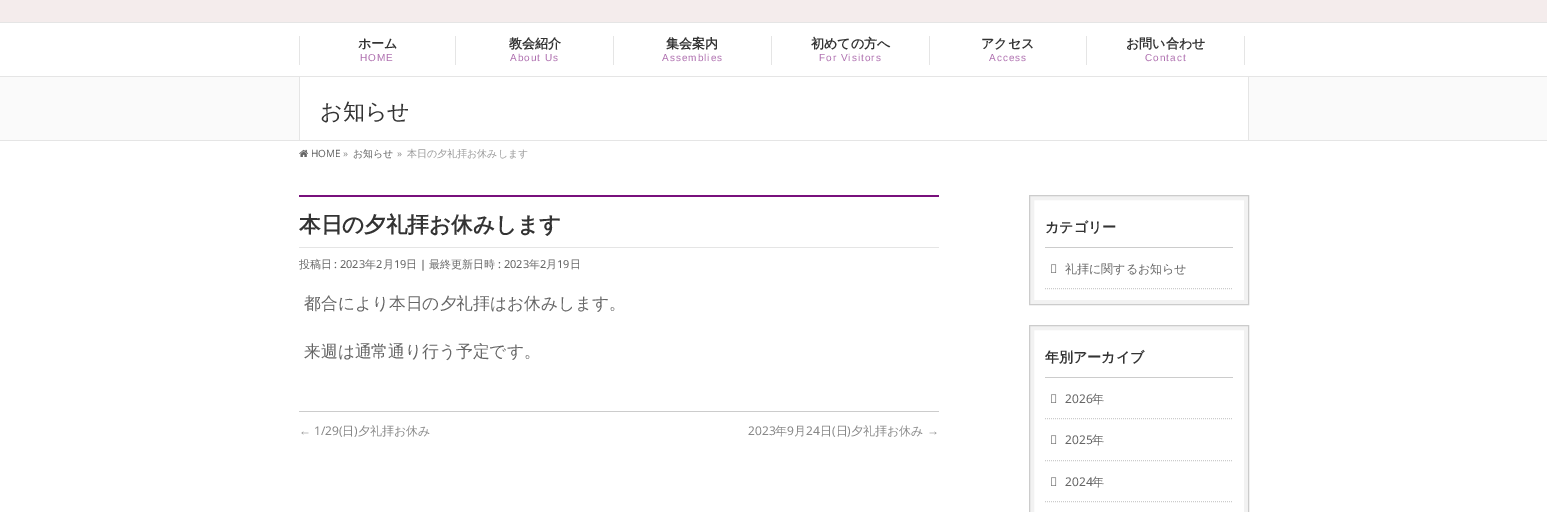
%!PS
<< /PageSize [1547 512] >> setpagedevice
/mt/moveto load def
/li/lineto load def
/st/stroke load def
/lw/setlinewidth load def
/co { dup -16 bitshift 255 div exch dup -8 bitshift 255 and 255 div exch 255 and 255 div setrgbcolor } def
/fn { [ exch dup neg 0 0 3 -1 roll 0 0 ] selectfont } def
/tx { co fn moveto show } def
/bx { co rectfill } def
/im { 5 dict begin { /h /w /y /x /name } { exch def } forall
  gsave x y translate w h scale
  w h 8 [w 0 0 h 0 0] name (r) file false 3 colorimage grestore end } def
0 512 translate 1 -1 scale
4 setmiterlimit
0 0 1547 512 16#FFFFFF bx
0 0 1547 22 16#F4ECEC bx
0 22 1547 1 16#E5E5E5 bx
0 76 1547 1 16#E5E5E5 bx
455 36 1 29 16#E5E5E5 bx
299 36 1 29 16#E5E5E5 bx
613 36 1 29 16#E5E5E5 bx
771 36 1 29 16#E5E5E5 bx
929 36 1 29 16#E5E5E5 bx
1086 36 1 29 16#E5E5E5 bx
1244 36 1 29 16#E5E5E5 bx
0 77 1547 63 16#FAFAFA bx
0 140 1547 1 16#E5E5E5 bx
300 77 948 63 16#FFFFFF bx
1248 77 1 63 16#E5E5E5 bx
299 77 1 63 16#E5E5E5 bx
(media/1.raw) 299 149 10 8 im
299 195 640 2 16#79107C bx
299 247 640 1 16#E5E5E5 bx
299 411 640 1 16#CCCCCC bx
16#F2F2F2 co
4 lw
1032 198 214 104 rectstroke
16#CCCCCC co
1 lw
1029.5 195.5 219 109 rectstroke
1045 247 188 1 16#CCCCCC bx
[1 1] 0 setdash
1045 288.5 mt 1233 288.5 li st
(media/2.raw) 1051 264 6 9 im
16#F2F2F2 co
4 lw
[] 0 setdash
1032 328 214 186 rectstroke
16#CCCCCC co
1 lw
1029.5 325.5 219 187 rectstroke
1045 377 188 1 16#CCCCCC bx
[1 1] 0 setdash
1045 418.5 mt 1233 418.5 li st
(media/2.raw) 1051 394 6 9 im
1045 460.5 mt 1233 460.5 li st
(media/2.raw) 1051 435 6 9 im
1045 501.5 mt 1233 501.5 li st
(media/2.raw) 1051 477 6 9 im
(ホーム) 358 48 /WenQuanYiZenHei-Bold 13 16#333333 tx
/LiberationSans-Regular 10 fn
16#AF70B0 co
360 61 mt 1 0 (HOME) ashow
(教会紹介) 509 48 /WenQuanYiZenHei-Bold 13 16#333333 tx
/LiberationSans-Regular 10 fn
16#AF70B0 co
510 61 mt 1 0 (About Us) ashow
(集会案内) 666 48 /WenQuanYiZenHei-Bold 13 16#333333 tx
/LiberationSans-Regular 10 fn
16#AF70B0 co
662 61 mt 1 0 (Assemblies) ashow
(初めての方へ) 811 48 /WenQuanYiZenHei-Bold 13 16#333333 tx
/LiberationSans-Regular 10 fn
16#AF70B0 co
819 61 mt 1 0 (For Visitors) ashow
(アクセス) 981 48 /WenQuanYiZenHei-Bold 13 16#333333 tx
/LiberationSans-Regular 10 fn
16#AF70B0 co
989 61 mt 1 0 (Access) ashow
(お問い合わせ) 1126 48 /WenQuanYiZenHei-Bold 13 16#333333 tx
/LiberationSans-Regular 10 fn
16#AF70B0 co
1145 61 mt 1 0 (Contact) ashow
(お知らせ) 320 119 /WenQuanYiZenHei-Medium 22 16#333333 tx
(HOME) 311 157 /NotoSans-Regular 10 16#666666 tx
(») 343 157 /NotoSans-Regular 10 16#999999 tx
(お知らせ) 353 157 /WenQuanYiZenHei-Medium 10 16#666666 tx
(») 397 157 /NotoSans-Regular 10 16#999999 tx
(本日の夕礼拝お休みします) 407 157 /WenQuanYiZenHei-Medium 10 16#999999 tx
(本日の夕礼拝お休みします) 299 232 /WenQuanYiZenHei-Bold 21.6 16#333333 tx
(投稿日) 299 268 /WenQuanYiZenHei-Medium 11 16#666666 tx
(: 2023) 334 268 /NotoSans-Regular 11 16#666666 tx
(年) 365 268 /WenQuanYiZenHei-Medium 11 16#666666 tx
(2) 376 268 /NotoSans-Regular 11 16#666666 tx
(月) 383 268 /WenQuanYiZenHei-Medium 11 16#666666 tx
(19) 394 268 /NotoSans-Regular 11 16#666666 tx
(日) 406 268 /WenQuanYiZenHei-Medium 11 16#666666 tx
(|) 420 268 /NotoSans-Regular 11 16#666666 tx
(最終更新日時) 429 268 /WenQuanYiZenHei-Medium 11 16#666666 tx
(: 2023) 498 268 /NotoSans-Regular 11 16#666666 tx
(年) 529 268 /WenQuanYiZenHei-Medium 11 16#666666 tx
(2) 540 268 /NotoSans-Regular 11 16#666666 tx
(月) 546 268 /WenQuanYiZenHei-Medium 11 16#666666 tx
(19) 557 268 /NotoSans-Regular 11 16#666666 tx
(日) 570 268 /WenQuanYiZenHei-Medium 11 16#666666 tx
(都合により本日の夕礼拝はお休みします。) 304 309 /WenQuanYiZenHei-Medium 16.75 16#666666 tx
(来週は通常通り行う予定です。) 304 357 /WenQuanYiZenHei-Medium 16.75 16#666666 tx
(1/29\() 314 435 /NotoSans-Regular 12 16#888888 tx
(日 夕礼拝お休み) 342 435 /WenQuanYiZenHei-Medium 12 16#888888 tx
(←) 299 435 /LiberationSans-Regular 12 16#888888 tx
(\)) 354 435 /NotoSans-Regular 12 16#888888 tx
(2023) 748 435 /NotoSans-Regular 12 16#888888 tx
(年) 775 435 /WenQuanYiZenHei-Medium 12 16#888888 tx
(9) 787 435 /NotoSans-Regular 12 16#888888 tx
(月) 794 435 /WenQuanYiZenHei-Medium 12 16#888888 tx
(24) 806 435 /NotoSans-Regular 12 16#888888 tx
(日 日 夕礼拝お休み) 820 435 /WenQuanYiZenHei-Medium 12 16#888888 tx
(\() 832 435 /NotoSans-Regular 12 16#888888 tx
(\)) 847 435 /NotoSans-Regular 12 16#888888 tx
(→) 927 435 /LiberationSans-Regular 12 16#888888 tx
(カテゴリー) 1045 232 /WenQuanYiZenHei-Bold 14 16#333333 tx
(礼拝に関するお知らせ) 1065 273 /WenQuanYiZenHei-Medium 12 16#666666 tx
(年別アーカイブ) 1045 362 /WenQuanYiZenHei-Bold 14 16#333333 tx
(2026) 1065 403 /NotoSans-Regular 12 16#666666 tx
(年) 1092 403 /WenQuanYiZenHei-Medium 12 16#666666 tx
(2025) 1065 444 /NotoSans-Regular 12 16#666666 tx
(年) 1092 444 /WenQuanYiZenHei-Medium 12 16#666666 tx
(2024) 1065 486 /NotoSans-Regular 12 16#666666 tx
(年) 1092 486 /WenQuanYiZenHei-Medium 12 16#666666 tx
showpage
